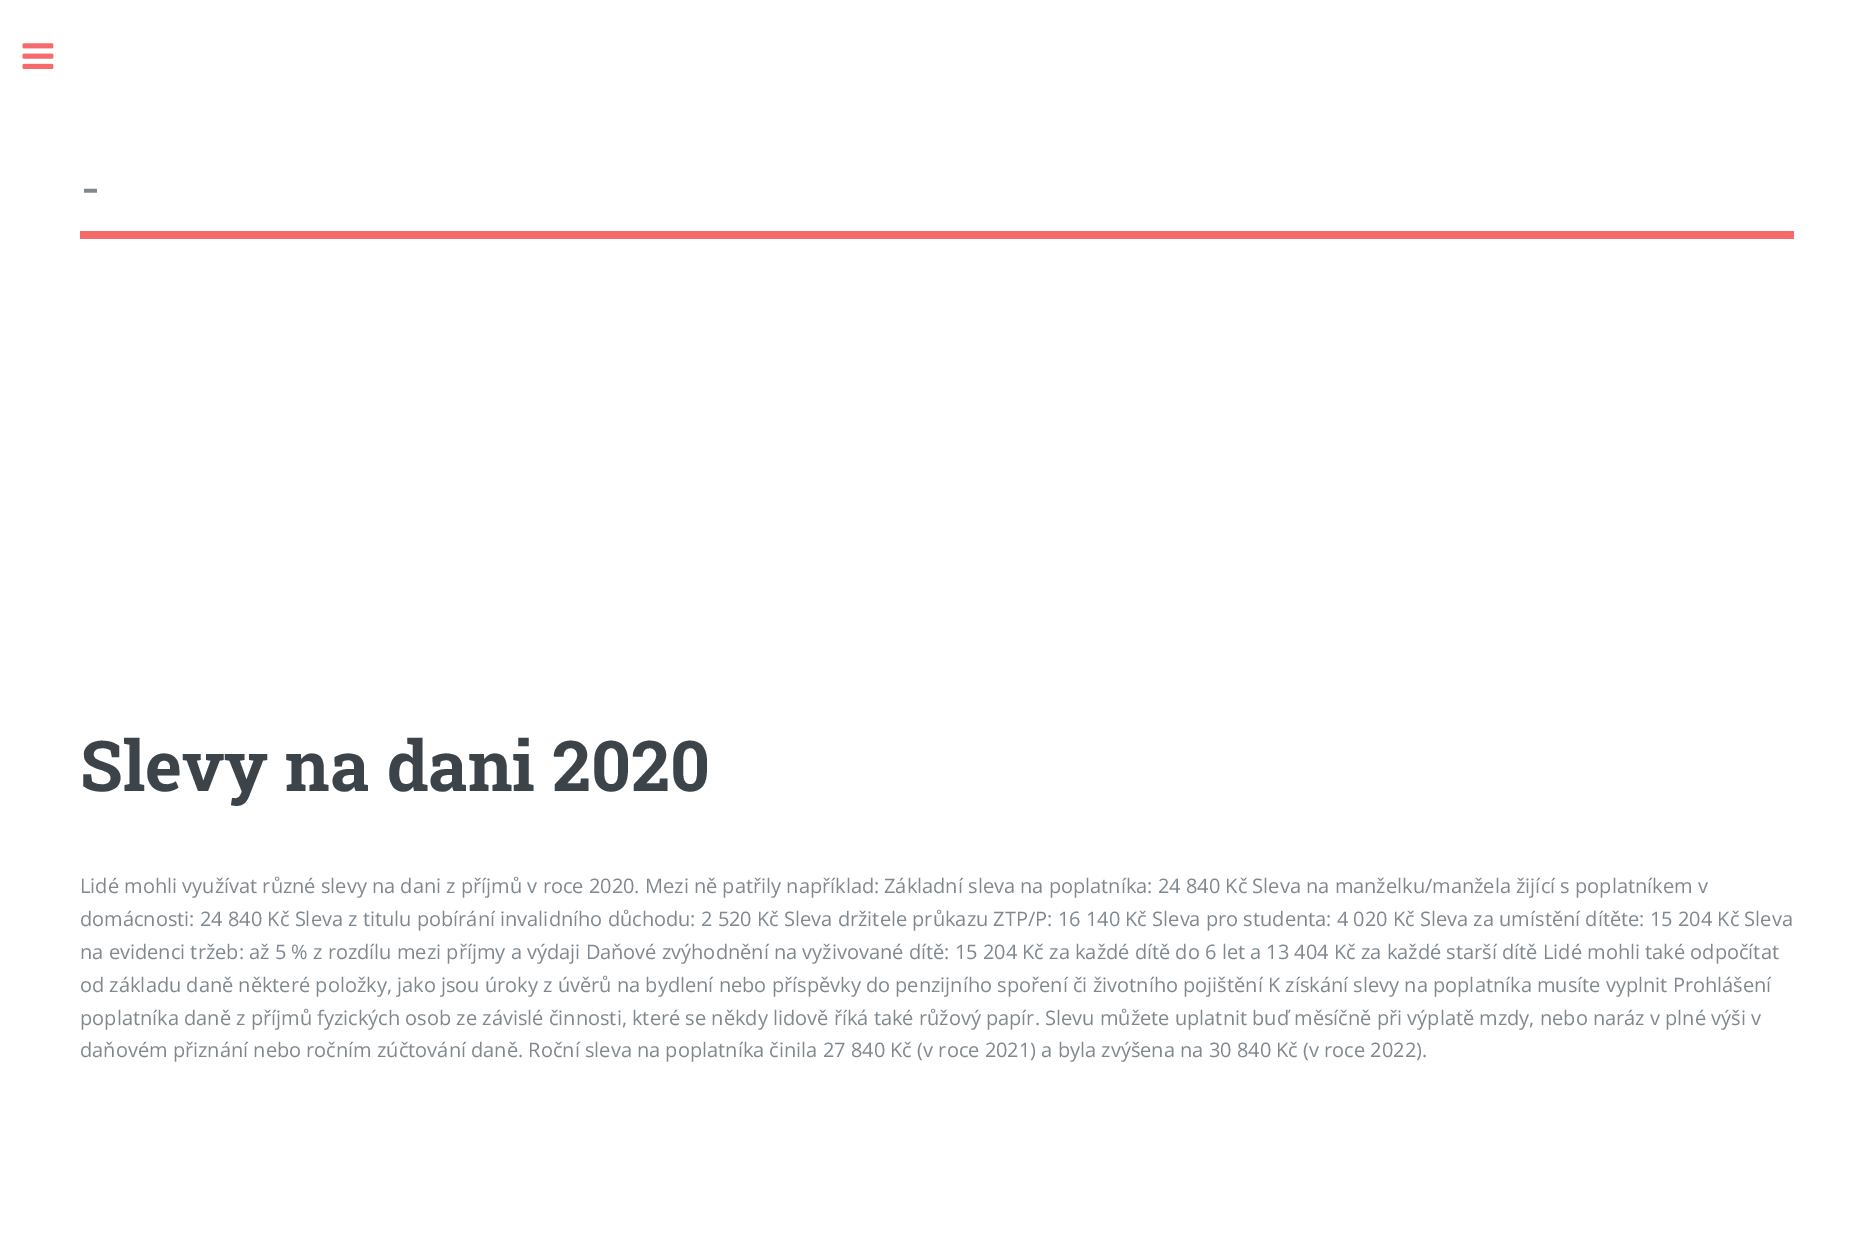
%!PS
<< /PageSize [1873 1241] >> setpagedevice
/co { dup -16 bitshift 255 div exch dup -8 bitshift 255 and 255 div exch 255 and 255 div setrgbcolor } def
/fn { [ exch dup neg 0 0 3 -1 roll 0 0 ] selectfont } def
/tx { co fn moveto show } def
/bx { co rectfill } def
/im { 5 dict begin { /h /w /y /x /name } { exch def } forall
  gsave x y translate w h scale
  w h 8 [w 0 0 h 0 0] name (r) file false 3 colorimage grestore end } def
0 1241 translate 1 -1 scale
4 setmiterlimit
0 0 1873 1241 16#FFFFFF bx
(media/1.raw) 22 43 32 26 im
80 231 1714 8 16#F56A6A bx
(-) 80 207 /RobotoSlab-Regular 54 16#7F888F tx
(Slevy na dani 2020) 80 791 /RobotoSlab-Bold 70 16#3D4449 tx
(Lidé mohli využívat různé slevy na dani z příjmů v roce 2020. Mezi ně patřily například:) 80 893 /OpenSans-Regular 20 16#7F888F tx
(Základní sleva na poplatníka: 24 840 Kč Sleva na manželku/manžela žijící s poplatníkem v) 884 893 /OpenSans-Regular 20 16#7F888F tx
(domácnosti: 24 840 Kč Sleva z titulu pobírání invalidního důchodu: 2 520 Kč Sleva držitele průkazu ZTP/P: 16 140 Kč Sleva pro studenta: 4 020 Kč Sleva za umístění dítěte: 15 204 Kč Sleva) 80 926 /OpenSans-Regular 20 16#7F888F tx
(na evidenci tržeb: až 5 % z rozdílu mezi příjmy a výdaji Daňové zvýhodnění na vyživované dítě: 15 204 Kč za každé dítě do 6 let a 13 404 Kč za každé starší dítě Lidé mohli také odpočítat) 80 959 /OpenSans-Regular 20 16#7F888F tx
(od základu daně některé položky, jako jsou úroky z úvěrů na bydlení nebo příspěvky do penzijního spoření či životního pojištění K získání slevy na poplatníka musíte vyplnit Prohlášení) 80 992 /OpenSans-Regular 20 16#7F888F tx
(poplatníka daně z příjmů fyzických osob ze závislé činnosti, které se někdy lidově říká také růžový papír. Slevu můžete uplatnit buď měsíčně při výplatě mzdy, nebo naráz v plné výši v) 80 1025 /OpenSans-Regular 20 16#7F888F tx
(daňovém přiznání nebo ročním zúčtování daně. Roční sleva na poplatníka činila 27 840 Kč \(v roce 2021\) a byla zvýšena na 30 840 Kč \(v roce 2022\).) 80 1057 /OpenSans-Regular 20 16#7F888F tx
showpage
